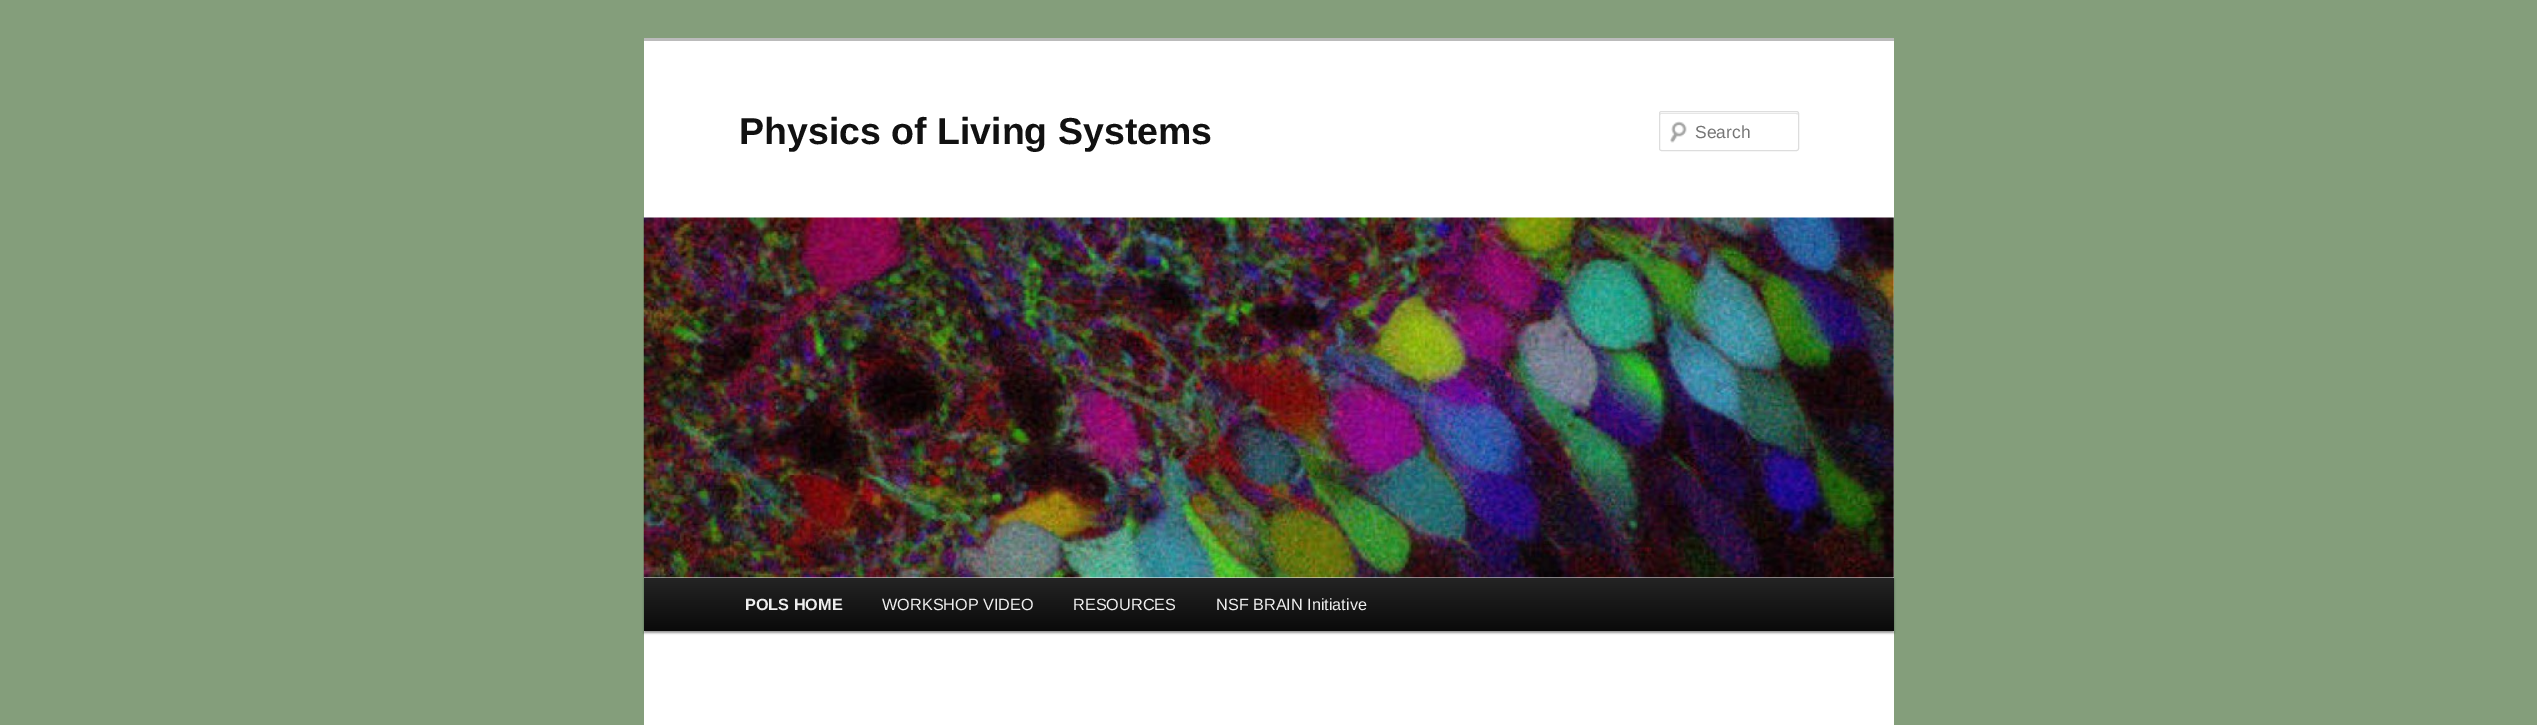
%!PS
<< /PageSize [2537 725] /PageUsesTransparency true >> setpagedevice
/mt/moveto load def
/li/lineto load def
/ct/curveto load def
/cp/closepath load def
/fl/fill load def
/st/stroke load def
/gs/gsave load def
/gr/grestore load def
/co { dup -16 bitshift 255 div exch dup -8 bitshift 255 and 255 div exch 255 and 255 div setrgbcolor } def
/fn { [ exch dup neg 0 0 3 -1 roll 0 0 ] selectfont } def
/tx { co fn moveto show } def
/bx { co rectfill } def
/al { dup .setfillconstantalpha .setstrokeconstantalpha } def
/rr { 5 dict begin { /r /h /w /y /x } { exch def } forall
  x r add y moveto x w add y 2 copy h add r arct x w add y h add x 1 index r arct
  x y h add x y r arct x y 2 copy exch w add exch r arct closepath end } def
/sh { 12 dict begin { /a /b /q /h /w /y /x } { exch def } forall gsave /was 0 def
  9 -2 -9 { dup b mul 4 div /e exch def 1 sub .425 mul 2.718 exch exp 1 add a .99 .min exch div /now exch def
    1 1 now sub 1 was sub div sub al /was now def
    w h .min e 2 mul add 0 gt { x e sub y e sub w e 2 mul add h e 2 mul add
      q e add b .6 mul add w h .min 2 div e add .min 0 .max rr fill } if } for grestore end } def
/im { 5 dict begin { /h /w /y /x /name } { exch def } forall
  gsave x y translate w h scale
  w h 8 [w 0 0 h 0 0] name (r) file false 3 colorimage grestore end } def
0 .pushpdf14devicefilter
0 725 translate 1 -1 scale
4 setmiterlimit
0 0 2537 725 16#849E7B bx
644 41 1250 684 16#FFFFFF bx
644 38 1250 3 16#BBBBBB bx
(media/1.raw) 1670 121 17 22 im
16#E6E6E6 co
1661 114 mt 1796 114 li 1797 114 1798 114 1798 115 ct 1798 114 1798 113 1797 113 ct 1661 113 li 1660 113 1660 114 1660 115 ct cp fl
16#DDDDDD co
1659.5 111.5 139 39 2 rr st
16#000000 co
644 579 1250 54 0 1 .4 sh
(media/2.raw) 643 217 1251 361 im
gs 644 578 mt 1894 578 li 1894 631 li 644 631 li cp clip newpath
<< /ShadingType 2 /ColorSpace /DeviceRGB /Coords [1269 577 1269 631] /Extend [true true] /Function << /FunctionType 2 /Domain [0 1] /C0 [.145 .145 .145] /C1 [.039 .039 .039] /N 1 >> >> shfill gr
(Physics of Living Systems) 739 144 /LiberationSans-Bold 37.5 16#111111 tx
(Search) 1695 138 /LiberationSans-Regular 17.5 16#757575 tx
(POLS HOME) 745 610 /LiberationSans-Bold 16.25 16#EEEEEE tx
(WORKSHOP VIDEO) 882 610 /LiberationSans-Regular 16.25 16#EEEEEE tx
(RESOURCES) 1073 610 /LiberationSans-Regular 16.25 16#EEEEEE tx
(NSF BRAIN Initiative) 1216 610 /LiberationSans-Regular 16.25 16#EEEEEE tx
.poppdf14devicefilter showpage
